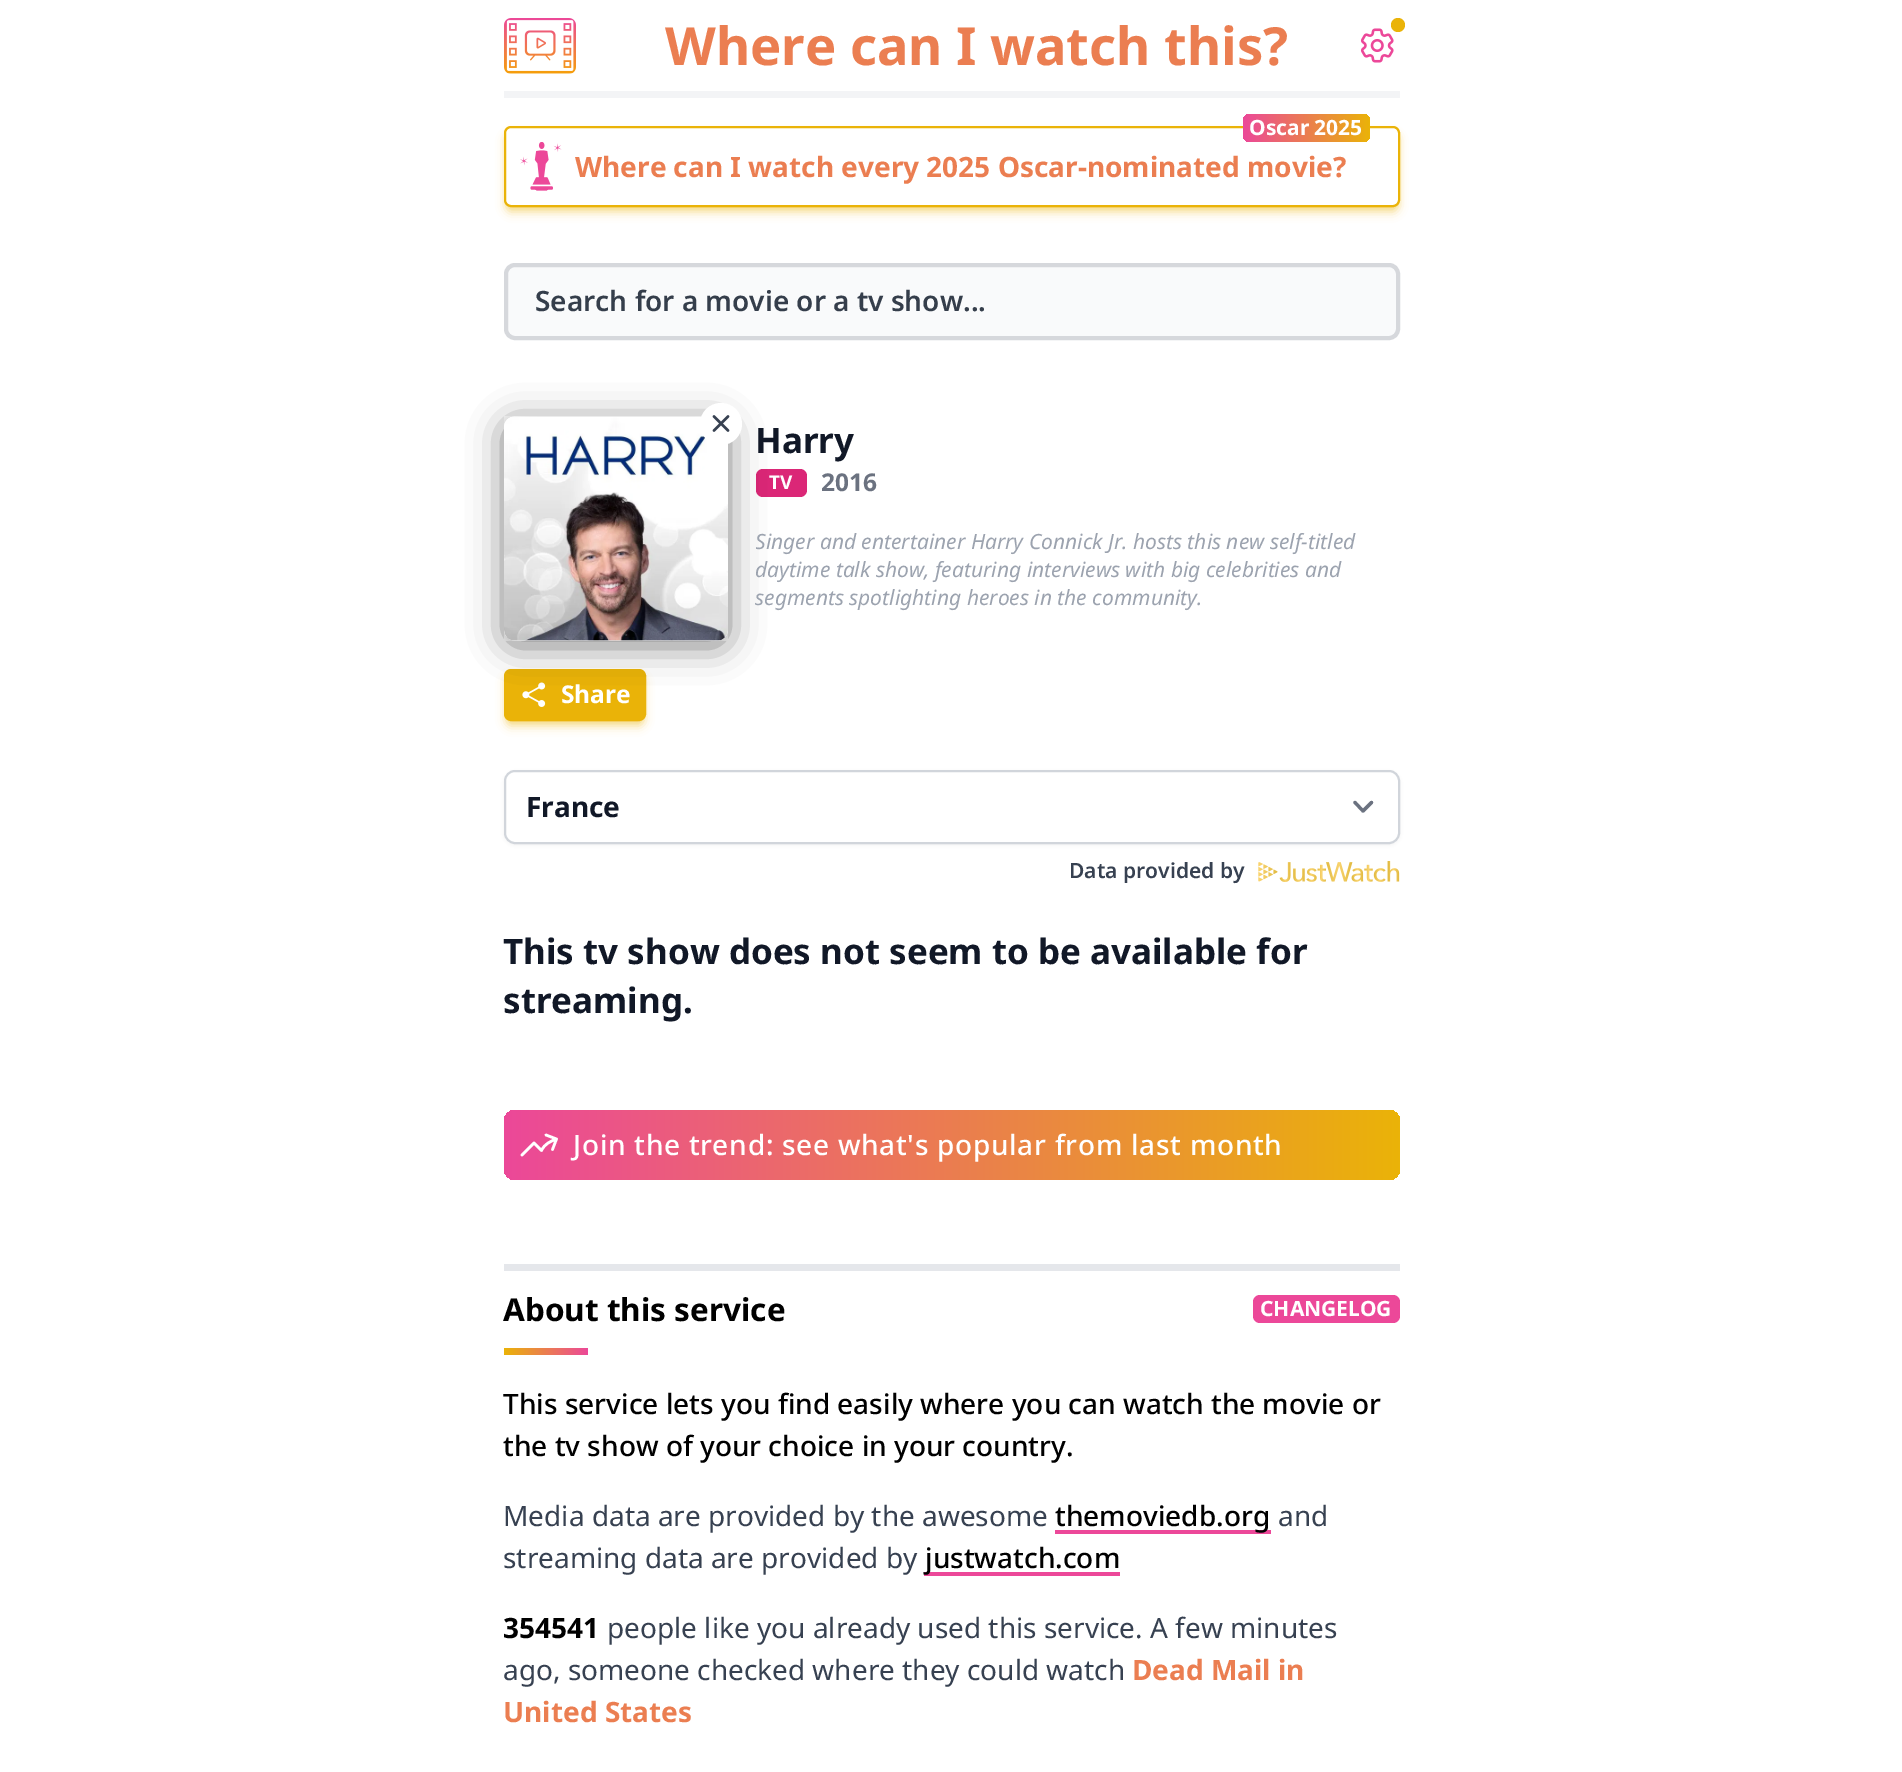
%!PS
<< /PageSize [1902 1772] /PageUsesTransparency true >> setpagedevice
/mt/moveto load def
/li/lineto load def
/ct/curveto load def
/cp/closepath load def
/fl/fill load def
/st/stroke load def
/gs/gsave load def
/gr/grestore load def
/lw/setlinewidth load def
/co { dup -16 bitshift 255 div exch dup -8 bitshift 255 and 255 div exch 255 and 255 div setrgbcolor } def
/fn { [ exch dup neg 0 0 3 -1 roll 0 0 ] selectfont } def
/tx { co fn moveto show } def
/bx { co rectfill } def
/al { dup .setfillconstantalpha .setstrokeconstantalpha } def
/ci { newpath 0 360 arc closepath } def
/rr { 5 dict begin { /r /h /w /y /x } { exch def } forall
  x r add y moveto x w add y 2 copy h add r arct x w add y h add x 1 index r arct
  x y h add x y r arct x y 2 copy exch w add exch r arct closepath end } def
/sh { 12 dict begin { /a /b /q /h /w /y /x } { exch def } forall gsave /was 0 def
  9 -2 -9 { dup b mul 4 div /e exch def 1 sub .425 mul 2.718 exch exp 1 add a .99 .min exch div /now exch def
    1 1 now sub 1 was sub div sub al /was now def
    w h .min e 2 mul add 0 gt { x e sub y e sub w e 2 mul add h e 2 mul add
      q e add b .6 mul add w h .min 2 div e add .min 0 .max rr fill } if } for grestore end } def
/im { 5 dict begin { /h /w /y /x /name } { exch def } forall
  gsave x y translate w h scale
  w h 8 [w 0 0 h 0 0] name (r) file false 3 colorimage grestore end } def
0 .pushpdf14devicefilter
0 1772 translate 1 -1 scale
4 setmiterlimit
0 0 1902 1772 16#FFFFFF bx
(media/1.raw) 504 18 72 56 im
(media/2.raw) 1360 28 34 35 im
16#EAB308 co
1398 25 7 ci fl
504 91 896 7 16#F3F4F6 bx
gs
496 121 mt 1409 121 li 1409 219 li 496 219 li cp 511 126 mt 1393 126 li 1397 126 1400 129 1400 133 ct 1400 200 li 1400 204 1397 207 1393 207 ct 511 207 li 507 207 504 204 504 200 ct 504 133 li 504 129 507 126 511 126 ct cp eoclip newpath
16#EAB308 co
508 133 889 74 4 3.5 .4 sh
gr
gs
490 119 mt 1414 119 li 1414 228 li 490 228 li cp 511 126 mt 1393 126 li 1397 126 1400 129 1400 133 ct 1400 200 li 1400 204 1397 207 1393 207 ct 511 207 li 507 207 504 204 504 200 ct 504 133 li 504 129 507 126 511 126 ct cp eoclip newpath
16#EAB308 co
506 135 892 77 5 5 .4 sh
gr
16#EAB308 co
2 lw
505 127 894 79 6 rr st
gs 1243 114 127 28 7 rr clip newpath
<< /ShadingType 2 /ColorSpace /DeviceRGB /Coords [1243 128 1370 128] /Extend [true true] /Function << /FunctionType 2 /Domain [0 1] /C0 [.925 .282 .6] /C1 [.918 .702 .031] /N 1 >> >> shfill gr
(media/3.raw) 520 142 42 49 im
16#F9FAFB co
506 265 892 73 9 rr gs fl gr
16#D6D8DC co
4 lw
st
16#DB2777 co
756 469 51 28 7 rr fl
16#EAB308 co
508 676 134 45 4 3.5 .4 sh
506 677 138 49 5 5 .4 sh
505 670 140 50 6 rr gs fl gr
2 lw
st
(media/6.raw) 522 682 24 25 im
16#000000 co
504 422 224 224 11 17.5 .5 sh
(media/4.raw) 504 416 224 225 im
16#FFFFFF co
721 424 21 ci fl
(media/5.raw) 712 415 18 17 im
16#000000 co
504 772 896 73 11 2 .05 sh
16#FFFFFF co
504 770 896 74 11 rr fl
16#6B7280 co
3.2 lw
1 setlinecap
1 setlinejoin
1355 802.5 mt 1363 811 li 1371.5 802.5 li st
16#D1D5DB co
2 lw
0 setlinecap
0 setlinejoin
505 771 894 72 10 rr st
(media/7.raw) 1258 861 142 21 im
gs 504 1110 896 70 11 rr clip newpath
<< /ShadingType 2 /ColorSpace /DeviceRGB /Coords [504 1145 1400 1145] /Extend [true true] /Function << /FunctionType 2 /Domain [0 1] /C0 [.925 .282 .6] /C1 [.918 .702 .031] /N 1 >> >> shfill gr
16#FFFFFF co
2.6 lw
1 setlinecap
1 setlinejoin
522 1155 mt 534 1143 li 541.5 1150.5 li 544.5 1144 550 1141.5 556.5 1139 ct 556.5 1139 mt 546 1135 li 556.5 1139 mt 552.5 1149.5 li st
504 1264 896 7 16#E5E7EB bx
16#EC4899 co
1253 1295 147 28 7 rr fl
gs 504 1348 mt 588 1348 li 588 1355 li 504 1355 li cp clip newpath
<< /ShadingType 2 /ColorSpace /DeviceRGB /Coords [504 1351 588 1351] /Extend [true true] /Function << /FunctionType 2 /Domain [0 1] /C0 [.918 .702 .031] /C1 [.925 .282 .6] /N 1 >> >> shfill gr
1055 1530 216 4 16#EC4899 bx
924 1572 196 4 16#EC4899 bx
(Where can I watch this?) 665 65 /NotoSans-Bold 52.5 16#EB7E51 tx
(Oscar 2025) 1249 135 /NotoSans-Bold 21 16#FFFFFF tx
(Where can I watch every 2025 Oscar-nominated movie?) 575 177 /NotoSans-Bold 28 16#EB7E51 tx
(Search for a movie or a tv show...) 535 311 /NotoSans-SemiBold 28 16#353E4B tx
(Harry) 755 453 /NotoSans-Bold 35 16#111827 tx
(TV) 769 489 /NotoSans-Bold 19 16#FFFFFF tx
(2016) 821 491 /NotoSans-Bold 24.5 16#6B7280 tx
gs
756 529 644 84 rectclip
(Singer and entertainer Harry Connick Jr. hosts this new self-titled) 755 549 /NotoSans-Italic 21 16#9CA3AF tx
gr
(daytime talk show, featuring interviews with big celebrities and) 755 577 /NotoSans-Italic 21 16#9CA3AF tx
(segments spotlighting heroes in the community.) 755 605 /NotoSans-Italic 21 16#9CA3AF tx
(Share) 561 703 /NotoSans-Bold 24.5 16#FFFFFF tx
(France) 526 817 /NotoSans-Bold 28 16#111827 tx
(Data provided by) 1069 878 /NotoSans-SemiBold 21 16#374151 tx
(This tv show does not seem to be available for) 503 964 /NotoSans-Bold 35 16#111827 tx
(streaming.) 503 1013 /NotoSans-Bold 35 16#111827 tx
/NotoSans-Medium 28 fn
16#FFFFFF co
573 1155 mt .7 0 (Join the trend: see what's popular from last month) ashow
(About this service) 503 1321 /NotoSans-Bold 31.5 16#000000 tx
(CHANGELOG) 1260 1316 /NotoSans-Bold 21 16#FFFFFF tx
(This service lets you find easily where you can watch the movie or) 503 1414 /NotoSans-Medium 28 16#000000 tx
(the tv show of your choice in your country.) 503 1456 /NotoSans-Medium 28 16#000000 tx
(Media data are provided by the awesome) 503 1526 /NotoSans-Regular 28 16#374151 tx
(themoviedb.org) 1055 1526 /NotoSans-Medium 28 16#000000 tx
(and) 1278 1526 /NotoSans-Regular 28 16#374151 tx
(streaming data are provided by) 503 1568 /NotoSans-Regular 28 16#374151 tx
(justwatch.com) 925 1568 /NotoSans-Medium 28 16#000000 tx
(354541) 503 1638 /NotoSans-Bold 28 16#000000 tx
(people like you already used this service. A few minutes) 607 1638 /NotoSans-Regular 28 16#374151 tx
(ago, someone checked where they could watch) 503 1680 /NotoSans-Regular 28 16#374151 tx
(Dead Mail in) 1132 1680 /NotoSans-Bold 28 16#EB7E51 tx
(United States) 503 1722 /NotoSans-Bold 28 16#EB7E51 tx
.poppdf14devicefilter showpage
